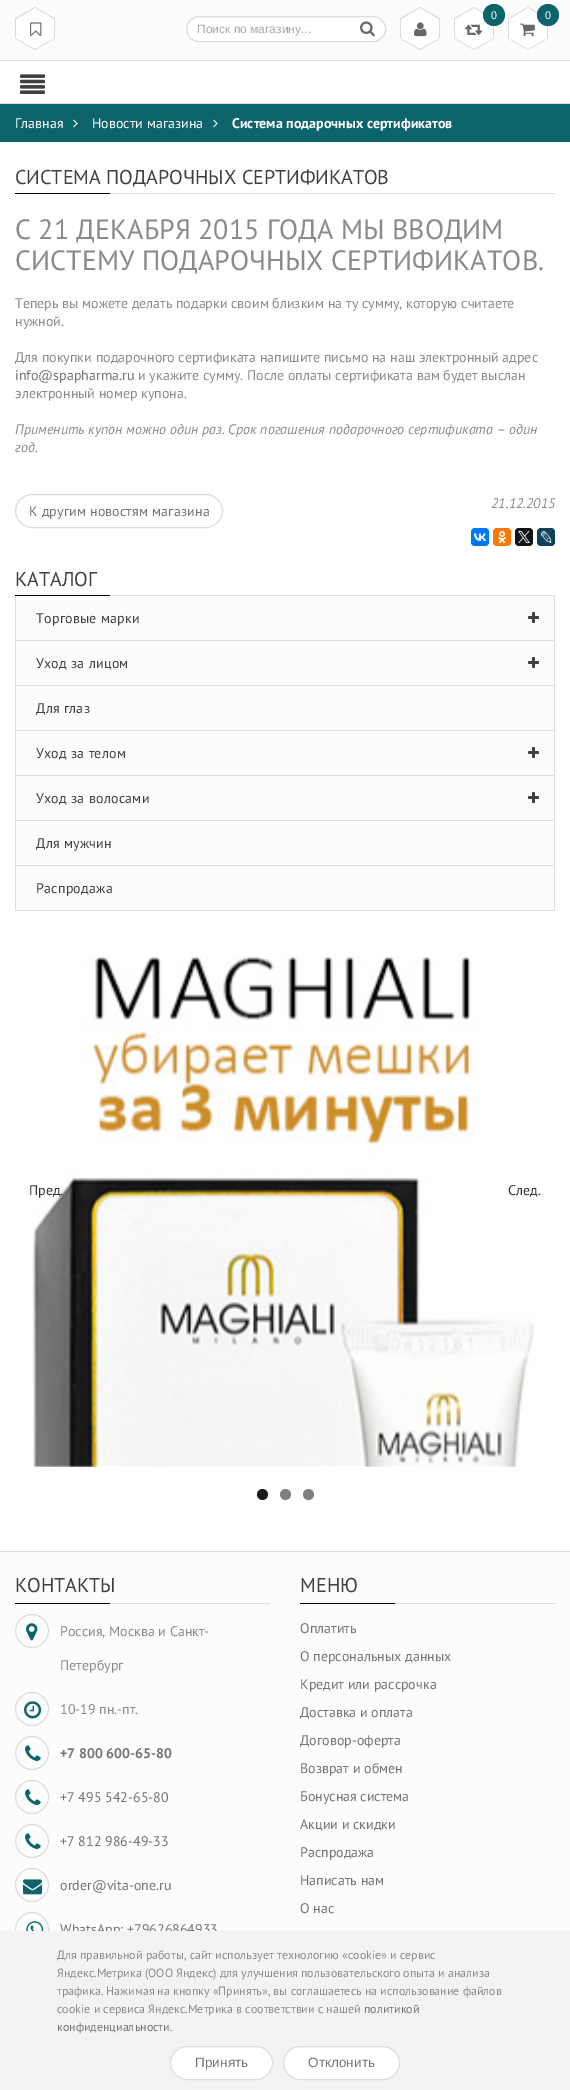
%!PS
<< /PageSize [570 2090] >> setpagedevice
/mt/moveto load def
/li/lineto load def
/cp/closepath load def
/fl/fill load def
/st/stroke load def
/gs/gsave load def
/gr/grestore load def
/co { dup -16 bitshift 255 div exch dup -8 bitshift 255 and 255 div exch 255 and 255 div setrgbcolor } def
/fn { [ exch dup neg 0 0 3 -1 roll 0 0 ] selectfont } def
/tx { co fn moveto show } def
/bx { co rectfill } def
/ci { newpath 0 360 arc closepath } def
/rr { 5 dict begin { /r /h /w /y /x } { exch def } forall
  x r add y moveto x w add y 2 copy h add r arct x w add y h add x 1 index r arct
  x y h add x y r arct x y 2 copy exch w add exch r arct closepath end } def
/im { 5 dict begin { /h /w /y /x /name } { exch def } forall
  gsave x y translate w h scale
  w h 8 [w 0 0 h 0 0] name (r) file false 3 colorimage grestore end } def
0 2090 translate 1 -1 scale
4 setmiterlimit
0 0 570 2090 16#FFFFFF bx
0 0 570 60 16#FCFCFC bx
16 19 38 19 16#FFFFFF bx
54 19 1 20 16#DBDBDB bx
15 19 1 20 16#DBDBDB bx
16#FFFFFF co
15 18.5 mt 35 7 li 55 18.5 li 35 30 li cp fl
16#DBDBDB co
15 18.5 mt 35 7 li 35.5 7.5 li 16 19 li cp fl
34.5 7.5 mt 35 7 li 55 18.5 li 54 19 li cp fl
16#FFFFFF co
15 38.5 mt 35 27 li 55 38.5 li 35 50 li cp fl
(media/1.raw) 30 22 12 14 im
16#DBDBDB co
34.5 49.5 mt 54 38.5 li 55 38.5 li 35 50 li cp fl
15 38.5 mt 16 38.5 li 35.5 49.5 li 35 50 li cp fl
401 19 38 19 16#FFFFFF bx
439 19 1 20 16#DBDBDB bx
400 19 1 20 16#DBDBDB bx
16#FFFFFF co
400 18.5 mt 420 7 li 440 18.5 li 420 30 li cp fl
16#DBDBDB co
400 18.5 mt 420 7 li 420.5 7.5 li 401 19 li cp fl
419.5 7.5 mt 420 7 li 440 18.5 li 439 19 li cp fl
16#FFFFFF co
400 38.5 mt 420 27 li 440 38.5 li 420 50 li cp fl
(media/2.raw) 414 22 13 15 im
16#DBDBDB co
419.5 49.5 mt 439 38.5 li 440 38.5 li 420 50 li cp fl
400 38.5 mt 401 38.5 li 420.5 49.5 li 420 50 li cp fl
455 19 38 19 16#FFFFFF bx
493 19 1 20 16#DBDBDB bx
454 19 1 20 16#DBDBDB bx
16#FFFFFF co
454 18.5 mt 474 7 li 494 18.5 li 474 30 li cp fl
16#DBDBDB co
454 18.5 mt 474 7 li 474.5 7.5 li 455 19 li cp fl
473.5 7.5 mt 474 7 li 494 18.5 li 493 19 li cp fl
16#0D646B co
494 15 11 ci fl
16#FFFFFF co
454 38.5 mt 474 27 li 494 38.5 li 474 50 li cp fl
(media/3.raw) 465 24 18 11 im
16#DBDBDB co
473.5 49.5 mt 493 38.5 li 494 38.5 li 474 50 li cp fl
454 38.5 mt 455 38.5 li 474.5 49.5 li 474 50 li cp fl
509 19 38 19 16#FFFFFF bx
547 19 1 20 16#DBDBDB bx
508 19 1 20 16#DBDBDB bx
16#FFFFFF co
508 18.5 mt 528 7 li 548 18.5 li 528 30 li cp fl
16#DBDBDB co
508 18.5 mt 528 7 li 528.5 7.5 li 509 19 li cp fl
527.5 7.5 mt 528 7 li 548 18.5 li 547 19 li cp fl
16#0D646B co
548 15 11 ci fl
16#FFFFFF co
508 38.5 mt 528 27 li 548 38.5 li 528 50 li cp fl
(media/4.raw) 520 23 15 14 im
16#DBDBDB co
527.5 49.5 mt 547 38.5 li 548 38.5 li 528 50 li cp fl
508 38.5 mt 509 38.5 li 528.5 49.5 li 528 50 li cp fl
16#FFFFFF co
186.5 16.5 199 25 12.5 rr gs fl gr
16#DDDDDD co
st
(media/5.raw) 360 21 15 16 im
0 60 570 1 16#DDDDDD bx
0 103 570 1 16#DDDDDD bx
(media/6.raw) 20 74 25 20 im
0 104 570 38 16#0D646B bx
(media/7.raw) 73 119 5 9 im
(media/7.raw) 213 119 5 9 im
110 193 445 1 16#DDDDDD bx
15 193 95 1 16#000000 bx
16#DDDDDD co
15.5 494.5 207 33 16.5 rr st
16#0077FF co
471 528 18 18 4 rr fl
(media/8.raw) 474 533 12 8 im
16#FF7700 co
493 528 18 18 4 rr fl
(media/9.raw) 498 531 8 12 im
16#0F1419 co
515 528 18 18 4 rr fl
(media/10.raw) 518 531 12 12 im
16#0D425A co
537 528 18 18 4 rr fl
(media/11.raw) 540 531 12 12 im
110 595 445 1 16#DDDDDD bx
15 595 95 1 16#000000 bx
554 596 1 315 16#DDDDDD bx
15 910 540 1 16#DDDDDD bx
15 596 1 315 16#DDDDDD bx
16 596 538 44 16#FCFCFC bx
16 640 538 1 16#DDDDDD bx
(media/12.raw) 528 612 11 11 im
16 641 538 44 16#FCFCFC bx
16 685 538 1 16#DDDDDD bx
(media/12.raw) 528 657 11 11 im
16 686 538 44 16#FCFCFC bx
16 730 538 1 16#DDDDDD bx
16 731 538 44 16#FCFCFC bx
16 775 538 1 16#DDDDDD bx
(media/12.raw) 528 747 11 11 im
16 776 538 44 16#FCFCFC bx
16 820 538 1 16#DDDDDD bx
(media/12.raw) 528 792 11 11 im
16 821 538 44 16#FCFCFC bx
16 865 538 1 16#DDDDDD bx
16 866 538 44 16#FCFCFC bx
(media/13.raw) 32 957 502 510 im
16#1A1A1A co
262.5 1494.5 5.5 ci fl
16#808080 co
285.5 1494.5 5.5 ci fl
308.5 1494.5 5.5 ci fl
0 1552 570 379 16#FCFCFC bx
0 1551 570 1 16#DDDDDD bx
110 1603 160 1 16#DDDDDD bx
15 1603 95 1 16#000000 bx
16#DDDDDD co
32 1631 16.5 ci st
(media/14.raw) 26 1623 12 18 im
32 1709 16.5 ci st
(media/15.raw) 24 1701 18 18 im
32 1753 16.5 ci st
(media/16.raw) 25 1745 16 16 im
32 1797 16.5 ci st
(media/16.raw) 25 1789 16 16 im
32 1841 16.5 ci st
(media/16.raw) 25 1833 16 16 im
32 1885 16.5 ci st
(media/17.raw) 23 1879 19 16 im
32 1929 16.5 ci st
(media/18.raw) 26 1921 18 10 im
395 1603 160 1 16#DDDDDD bx
300 1603 95 1 16#000000 bx
(0) 491 19 /PTSans-Regular 11 16#FFFFFF tx
(0) 545 19 /PTSans-Regular 11 16#FFFFFF tx
(Поиск по магазину...) 197 33 /LiberationSans-Regular 12 16#A9A9A9 tx
(Главная) 15 128 /PTSans-Regular 14 16#FFFFFF tx
(Новости магазина) 92 128 /PTSans-Regular 14 16#FFFFFF tx
(Система подарочных сертификатов) 232 128 /PTSans-Bold 14 16#FFFFFF tx
(СИСТЕМА ПОДАРОЧНЫХ СЕРТИФИКАТОВ) 15 184 /PTSans-Regular 20 16#404040 tx
(С 21 ДЕКАБРЯ 2015 ГОДА МЫ ВВОДИМ) 15 239 /PTSans-Regular 28 16#8B8B8B tx
(СИСТЕМУ ПОДАРОЧНЫХ СЕРТИФИКАТОВ.) 15 270 /PTSans-Regular 28 16#8B8B8B tx
(Теперь вы можете делать подарки своим близким на ту сумму, которую считаете) 15 308 /PTSans-Regular 14 16#8B8B8B tx
(нужной.) 15 326 /PTSans-Regular 14 16#8B8B8B tx
(Для покупки подарочного сертификата напишите письмо на наш электронный адрес) 15 362 /PTSans-Regular 14 16#8B8B8B tx
(info@spapharma.ru) 15 380 /PTSans-Regular 14 16#747474 tx
(и укажите сумму. После оплаты сертификата вам будет выслан) 138 380 /PTSans-Regular 14 16#8B8B8B tx
(электронный номер купона.) 15 398 /PTSans-Regular 14 16#8B8B8B tx
(Применить купон можно один раз. Срок погашения подарочного сертификата – один) 15 434 /PTSans-Italic 14 16#8B8B8B tx
(год.) 15 452 /PTSans-Italic 14 16#8B8B8B tx
(21.12.2015) 491 508 /PTSans-Italic 14 16#8B8B8B tx
/PTSans-Regular 14 fn
16#747474 co
29 516 mt .15 0 (К другим новостям магазина) ashow
(КАТАЛОГ) 15 586 /PTSans-Regular 20 16#404040 tx
/PTSans-Regular 14 fn
36 623 mt .25 0 (Торговые марки) ashow
36 668 mt .25 0 (Уход за лицом) ashow
36 713 mt .25 0 (Для глаз) ashow
36 758 mt .25 0 (Уход за телом) ashow
36 803 mt .25 0 (Уход за волосами) ashow
36 848 mt .25 0 (Для мужчин) ashow
36 893 mt .25 0 (Распродажа) ashow
(Пред.) 29 1195 /PTSans-Regular 14 16#323232 tx
(След.) 508 1195 /PTSans-Regular 14 16#323232 tx
(КОНТАКТЫ) 15 1592 /PTSans-Regular 20 16#404040 tx
(Россия, Москва и Санкт-) 60 1636 /PTSans-Regular 14 16#8B8B8B tx
(Петербург) 60 1670 /PTSans-Regular 14 16#8B8B8B tx
(10-19 пн.-пт.) 60 1714 /PTSans-Regular 14 16#8B8B8B tx
(+7 800 600-65-80) 60 1758 /PTSans-Bold 14 16#747474 tx
(+7 495 542-65-80) 60 1802 /PTSans-Regular 14 16#747474 tx
(+7 812 986-49-33) 60 1846 /PTSans-Regular 14 16#747474 tx
(order@vita-one.ru) 60 1890 /PTSans-Regular 14 16#747474 tx
(WhatsApp: +79626864933) 60 1934 /PTSans-Regular 14 16#747474 tx
(МЕНЮ) 300 1592 /PTSans-Regular 20 16#404040 tx
(Оплатить) 300 1633 /PTSans-Regular 14 16#747474 tx
(О персональных данных) 300 1661 /PTSans-Regular 14 16#747474 tx
(Кредит или рассрочка) 300 1689 /PTSans-Regular 14 16#747474 tx
(Доставка и оплата) 300 1717 /PTSans-Regular 14 16#747474 tx
(Договор-оферта) 300 1745 /PTSans-Regular 14 16#747474 tx
(Возврат и обмен) 300 1773 /PTSans-Regular 14 16#747474 tx
(Бонусная система) 300 1801 /PTSans-Regular 14 16#747474 tx
(Акции и скидки) 300 1829 /PTSans-Regular 14 16#747474 tx
(Распродажа) 300 1857 /PTSans-Regular 14 16#747474 tx
(Написать нам) 300 1885 /PTSans-Regular 14 16#747474 tx
(О нас) 300 1913 /PTSans-Regular 14 16#747474 tx
0 1931 570 159 16#F3F3F3 bx
(Для правильной работы, сайт использует технологию «cookie» и сервис) 57 1959 /PTSans-Regular 12 16#8B8B8B tx
(Яндекс.Метрика \(ООО Яндекс\) для улучшения пользовательского опыта и анализа) 57 1977 /PTSans-Regular 12 16#8B8B8B tx
(трафика. Нажимая на кнопку «Принять», вы соглашаетесь на использование файлов) 57 1995 /PTSans-Regular 12 16#8B8B8B tx
(cookie и сервиса Яндекс.Метрика в соответствии с нашей) 57 2013 /PTSans-Regular 12 16#8B8B8B tx
(политикой) 364 2013 /PTSans-Regular 12 16#747474 tx
(конфиденциальности) 57 2031 /PTSans-Regular 12 16#747474 tx
(.) 170 2031 /PTSans-Regular 12 16#8B8B8B tx
16#FFFFFF co
170.5 2046.5 102 33 16.5 rr gs fl gr
16#DDDDDD co
st
/LiberationSans-Regular 13.5 fn
16#747474 co
195 2067 mt .1 0 (Принять) ashow
16#FFFFFF co
283.5 2046.5 116 33 16.5 rr gs fl gr
16#DDDDDD co
st
16#747474 co
308 2067 mt .1 0 (Отклонить) ashow
showpage
